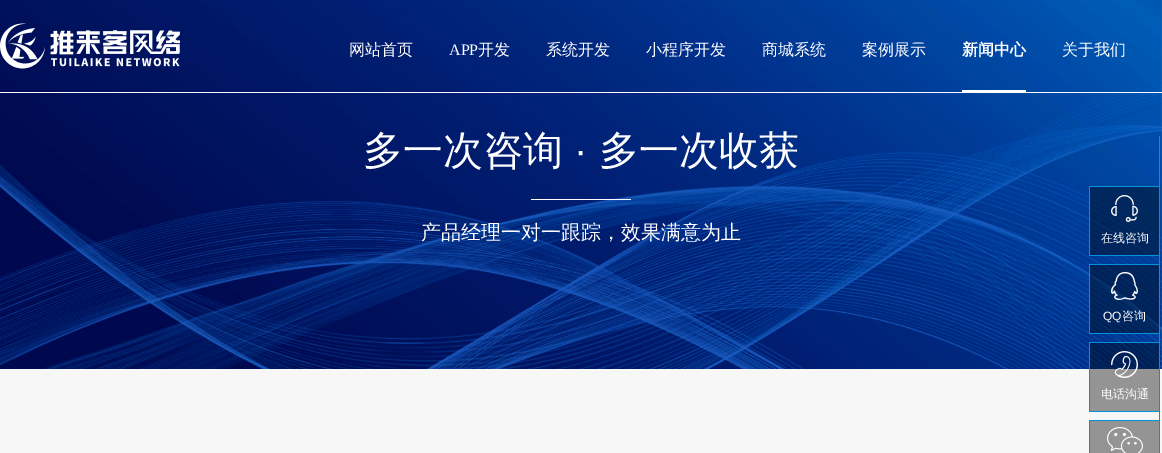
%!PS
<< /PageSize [1162 453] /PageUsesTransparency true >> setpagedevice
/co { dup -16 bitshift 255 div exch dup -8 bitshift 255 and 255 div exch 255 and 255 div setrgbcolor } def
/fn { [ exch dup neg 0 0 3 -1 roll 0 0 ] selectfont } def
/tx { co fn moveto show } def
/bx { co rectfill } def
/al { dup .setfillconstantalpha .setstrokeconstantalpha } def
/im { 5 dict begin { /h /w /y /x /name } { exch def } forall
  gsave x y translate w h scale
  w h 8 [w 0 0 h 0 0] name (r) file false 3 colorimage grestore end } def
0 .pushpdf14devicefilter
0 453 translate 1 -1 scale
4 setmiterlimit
0 0 1162 453 16#FFFFFF bx
(media/2.raw) 0 0 1162 369 im
0 92 1162 1 16#FFFFFF bx
(media/1.raw) 0 23 180 46 im
962 90 64 2 16#FFFFFF bx
531 199 100 1 16#FFFFFF bx
0 369 1162 84 16#F7F7F7 bx
1159 136 1 317 16#0092DF bx
0.4 al
1090 187 69 68 16#000000 bx
1 al
1089 186 70 1 16#0092DF bx
1089 255 70 1 16#0092DF bx
1089 186 1 70 16#0092DF bx
(media/3.raw) 1111 195 27 27 im
0.4 al
1090 265 69 68 16#000000 bx
1 al
1089 264 70 1 16#0092DF bx
1089 333 70 1 16#0092DF bx
1089 264 1 70 16#0092DF bx
(media/4.raw) 1111 272 27 28 im
0.4 al
1090 343 69 68 16#000000 bx
1 al
1089 342 70 1 16#0092DF bx
1089 411 70 1 16#0092DF bx
1089 342 1 70 16#0092DF bx
(media/5.raw) 1111 351 27 27 im
1090 421 69 32 16#949494 bx
1089 420 70 1 16#0092DF bx
1089 420 1 33 16#0092DF bx
(media/6.raw) 1107 427 36 26 im
(网站首页) 349 55 /WenQuanYiZenHei-Medium 16 16#FFFFFF tx
(APP) 449 55 /LiberationSerif-Regular 16 16#FFFFFF tx
(开发) 478 55 /WenQuanYiZenHei-Medium 16 16#FFFFFF tx
(系统开发) 546 55 /WenQuanYiZenHei-Medium 16 16#FFFFFF tx
(小程序开发) 646 55 /WenQuanYiZenHei-Medium 16 16#FFFFFF tx
(商城系统) 762 55 /WenQuanYiZenHei-Medium 16 16#FFFFFF tx
(案例展示) 862 55 /WenQuanYiZenHei-Medium 16 16#FFFFFF tx
(新闻中心) 962 55 /WenQuanYiZenHei-Bold 16 16#FFFFFF tx
(关于我们) 1062 55 /WenQuanYiZenHei-Medium 16 16#FFFFFF tx
(多一次咨询) 363 164 /WenQuanYiZenHei-Medium 40 16#FFFFFF tx
(·) 574 164 /LiberationSans-Regular 40 16#FFFFFF tx
(多一次收获) 599 164 /WenQuanYiZenHei-Medium 40 16#FFFFFF tx
(产品经理一对一跟踪，效果满意为止) 421 239 /WenQuanYiZenHei-Medium 20 16#FFFFFF tx
(在线咨询) 1101 242 /WenQuanYiZenHei-Medium 12 16#FFFFFF tx
(QQ) 1103 320 /LiberationSans-Regular 12 16#FFFFFF tx
(咨询) 1122 320 /WenQuanYiZenHei-Medium 12 16#FFFFFF tx
(电话沟通) 1101 398 /WenQuanYiZenHei-Medium 12 16#FFFFFF tx
.poppdf14devicefilter showpage
